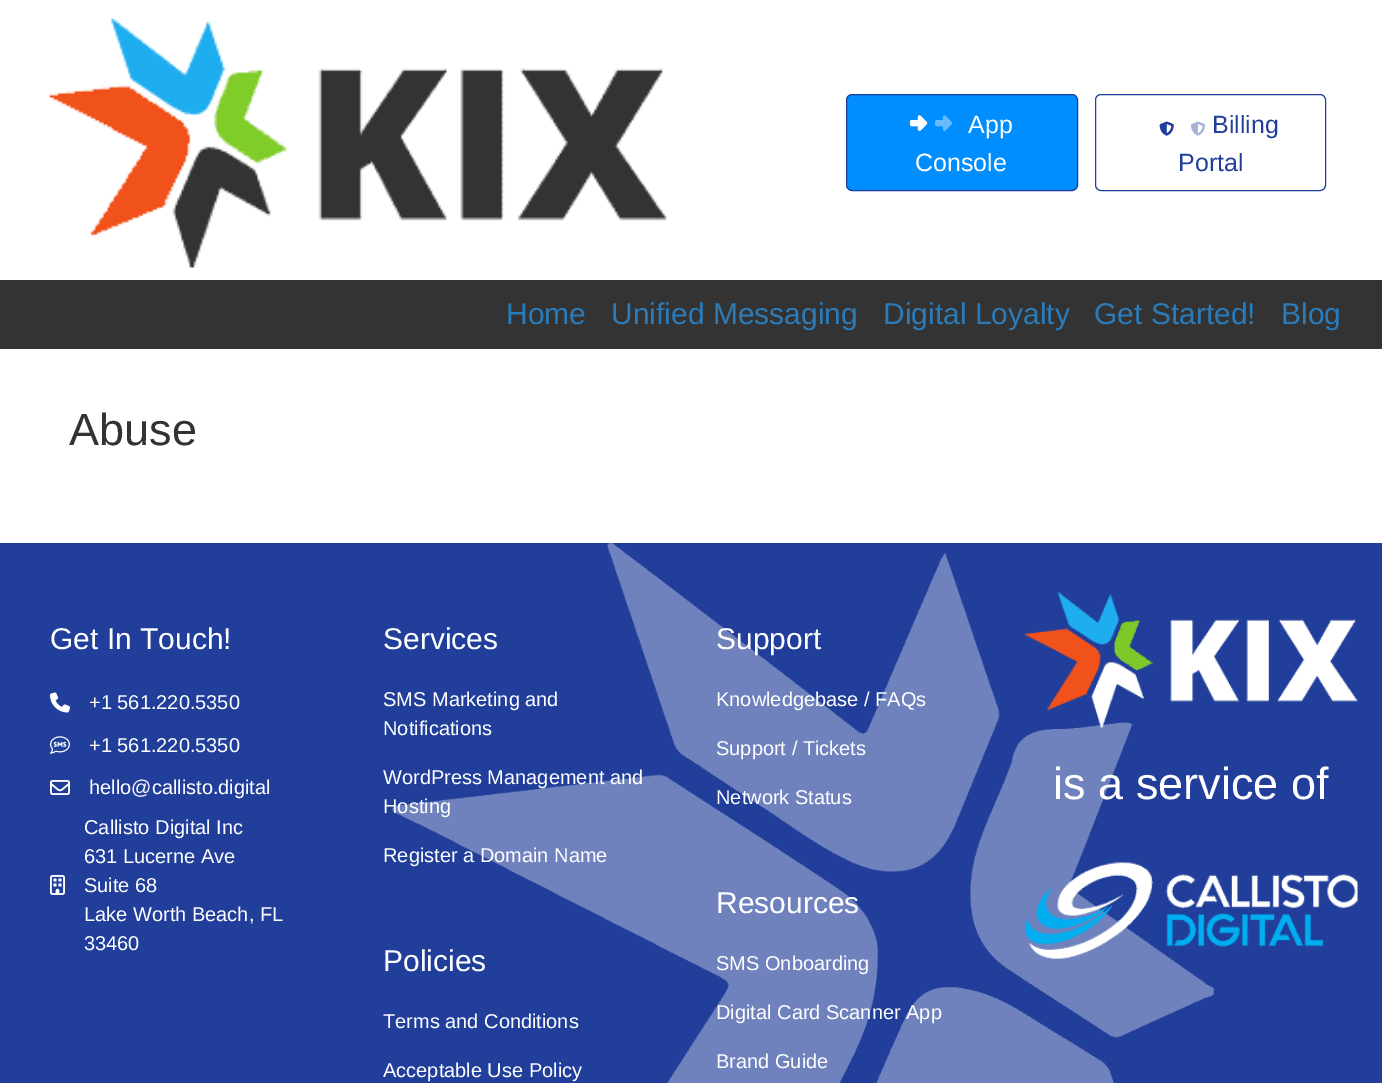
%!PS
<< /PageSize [1382 1083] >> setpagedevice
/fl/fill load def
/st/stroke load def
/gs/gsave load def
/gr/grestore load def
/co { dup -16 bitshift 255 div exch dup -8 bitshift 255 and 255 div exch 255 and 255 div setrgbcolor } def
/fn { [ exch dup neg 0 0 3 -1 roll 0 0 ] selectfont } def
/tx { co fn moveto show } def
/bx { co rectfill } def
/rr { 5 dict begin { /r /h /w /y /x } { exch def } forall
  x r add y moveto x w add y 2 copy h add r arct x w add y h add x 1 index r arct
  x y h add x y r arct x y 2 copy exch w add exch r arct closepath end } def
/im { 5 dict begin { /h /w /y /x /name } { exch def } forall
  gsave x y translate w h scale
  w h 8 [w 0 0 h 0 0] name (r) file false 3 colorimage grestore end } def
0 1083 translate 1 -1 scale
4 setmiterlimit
0 0 1382 1083 16#FFFFFF bx
(media/1.raw) 50 18 617 250 im
16#008EFF co
846.5 94.5 231 96 5.5 rr gs fl gr
16#213F9A co
st
(media/2.raw) 910 115 18 16 im
(media/3.raw) 910 115 43 16 im
1095.5 94.5 230 96 5.5 rr st
(media/4.raw) 1159 121 15 15 im
(media/5.raw) 1159 121 46 15 im
0 280 1382 69 16#333333 bx
0 543 1382 540 16#213F9A bx
(media/6.raw) 392 543 822 540 im
(media/7.raw) 50 692 20 21 im
(media/8.raw) 50 736 20 18 im
(media/9.raw) 50 780 20 15 im
(media/10.raw) 50 875 15 20 im
(media/11.raw) 1025 592 333 136 im
(media/12.raw) 1025 862 333 97 im
(App) 968 133 /LiberationSans-Regular 25 16#FFFFFF tx
(Console) 915 171 /LiberationSans-Regular 25 16#FFFFFF tx
(Billing) 1212 133 /LiberationSans-Regular 25 16#213F9A tx
(Portal) 1178 171 /LiberationSans-Regular 25 16#213F9A tx
(Home) 506 324 /LiberationSans-Regular 30 16#2B7BB9 tx
(Unified Messaging) 611 324 /LiberationSans-Regular 30 16#2B7BB9 tx
(Digital Loyalty) 883 324 /LiberationSans-Regular 30 16#2B7BB9 tx
(Get Started!) 1094 324 /LiberationSans-Regular 30 16#2B7BB9 tx
(Blog) 1281 324 /LiberationSans-Regular 30 16#2B7BB9 tx
(Abuse) 69 445 /LiberationSans-Regular 45 16#333333 tx
(Get In Touch!) 50 649 /LiberationSans-Regular 30 16#FFFFFF tx
(+1 561.220.5350) 89 709 /LiberationSans-Regular 20 16#FFFFFF tx
(+1 561.220.5350) 89 752 /LiberationSans-Regular 20 16#FFFFFF tx
(hello@callisto.digital) 89 794 /LiberationSans-Regular 20 16#FFFFFF tx
(Callisto Digital Inc) 84 834 /LiberationSans-Regular 20 16#FFFFFF tx
(631 Lucerne Ave) 84 863 /LiberationSans-Regular 20 16#FFFFFF tx
(Suite 68) 84 892 /LiberationSans-Regular 20 16#FFFFFF tx
(Lake Worth Beach, FL) 84 921 /LiberationSans-Regular 20 16#FFFFFF tx
(33460) 84 950 /LiberationSans-Regular 20 16#FFFFFF tx
(Services) 383 649 /LiberationSans-Regular 30 16#FFFFFF tx
(SMS Marketing and) 383 706 /LiberationSans-Regular 20 16#FFFFFF tx
(Notifications) 383 735 /LiberationSans-Regular 20 16#FFFFFF tx
(WordPress Management and) 383 784 /LiberationSans-Regular 20 16#FFFFFF tx
(Hosting) 383 813 /LiberationSans-Regular 20 16#FFFFFF tx
(Register a Domain Name) 383 862 /LiberationSans-Regular 20 16#FFFFFF tx
(Policies) 383 971 /LiberationSans-Regular 30 16#FFFFFF tx
(Terms and Conditions) 383 1028 /LiberationSans-Regular 20 16#FFFFFF tx
(Acceptable Use Policy) 383 1077 /LiberationSans-Regular 20 16#FFFFFF tx
(Support) 716 649 /LiberationSans-Regular 30 16#FFFFFF tx
(Knowledgebase / FAQs) 716 706 /LiberationSans-Regular 20 16#FFFFFF tx
(Support / Tickets) 716 755 /LiberationSans-Regular 20 16#FFFFFF tx
(Network Status) 716 804 /LiberationSans-Regular 20 16#FFFFFF tx
(Resources) 716 913 /LiberationSans-Regular 30 16#FFFFFF tx
(SMS Onboarding) 716 970 /LiberationSans-Regular 20 16#FFFFFF tx
(Digital Card Scanner App) 716 1019 /LiberationSans-Regular 20 16#FFFFFF tx
(Brand Guide) 716 1068 /LiberationSans-Regular 20 16#FFFFFF tx
(is a service of) 1053 799 /LiberationSans-Regular 45 16#FFFFFF tx
showpage
